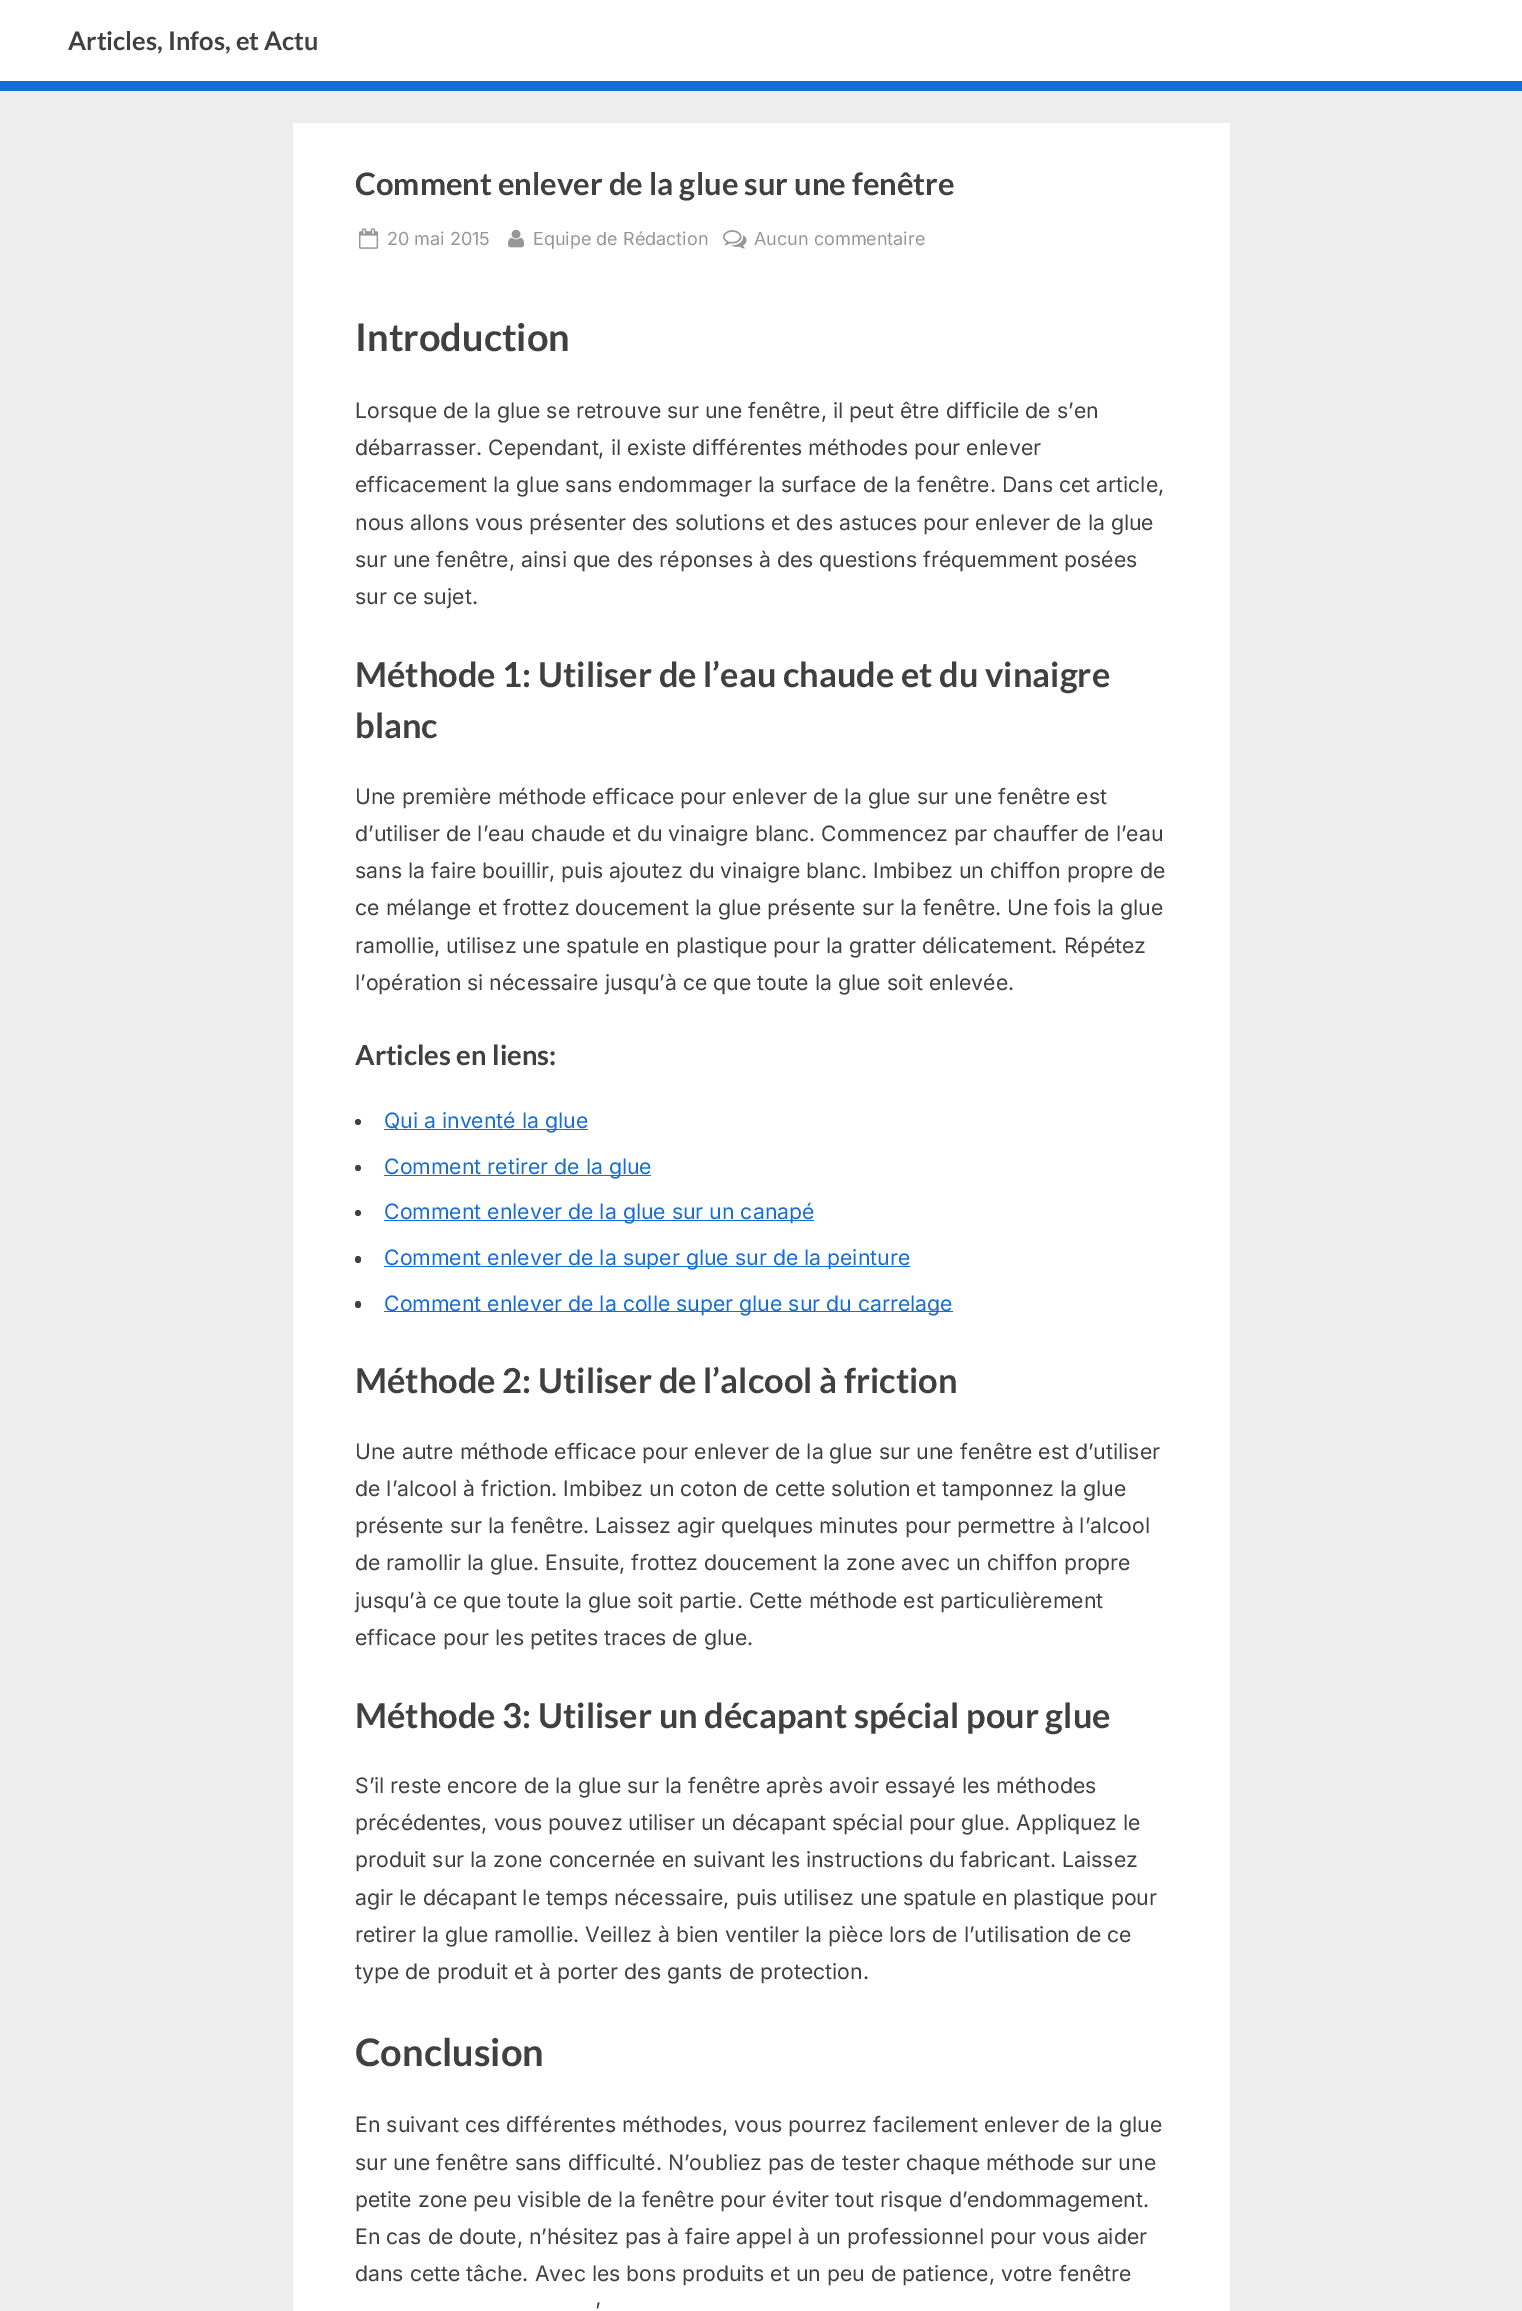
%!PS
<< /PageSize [1522 2311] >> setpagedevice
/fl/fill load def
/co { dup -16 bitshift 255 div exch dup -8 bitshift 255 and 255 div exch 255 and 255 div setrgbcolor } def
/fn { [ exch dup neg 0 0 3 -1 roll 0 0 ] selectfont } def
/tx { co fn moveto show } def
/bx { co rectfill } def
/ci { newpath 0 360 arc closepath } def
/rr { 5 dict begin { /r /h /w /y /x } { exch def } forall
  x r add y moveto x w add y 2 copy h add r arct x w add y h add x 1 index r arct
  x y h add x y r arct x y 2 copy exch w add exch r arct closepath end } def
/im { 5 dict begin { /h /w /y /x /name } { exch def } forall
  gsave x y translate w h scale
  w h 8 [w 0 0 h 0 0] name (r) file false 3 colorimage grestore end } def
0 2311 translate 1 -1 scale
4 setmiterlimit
0 0 1522 2311 16#EDEDED bx
0 0 1522 81 16#FFFFFF bx
0 81 1522 10 16#166DD6 bx
293 123 937 2188 16#FFFFFF bx
(media/1.raw) 359 228 20 21 im
(media/2.raw) 508 229 17 19 im
(media/3.raw) 723 230 24 19 im
16#404040 co
358 1122 3 ci fl
384 1129 204 1 16#166DD6 bx
16#404040 co
358 1168 3 ci fl
384 1175 267 1 16#166DD6 bx
16#404040 co
358 1213 3 ci fl
384 1220 430 1 16#166DD6 bx
16#404040 co
355 1256 6 7 3 rr fl
384 1266 526 1 16#166DD6 bx
16#404040 co
355 1301 6 7 3 rr fl
384 1311 569 1 16#166DD6 bx
(Articles, Infos, et Actu) 68 50 /Lato-Bold 25.5 16#404040 tx
(Comment enlever de la glue sur une fenêtre) 355 195 /Lato-Bold 31 16#404040 tx
(20 mai 2015) 387 245 /Inter-Regular 18 16#979797 tx
(Equipe de Rédaction) 533 245 /Inter-Regular 18 16#979797 tx
(Aucun commentaire) 754 245 /Inter-Regular 18 16#979797 tx
(Introduction) 355 351 /Lato-Bold 38 16#404040 tx
(Lorsque de la glue se retrouve sur une fenêtre, il peut être difficile de s’en) 355 418 /Inter-Regular 21.25 16#404040 tx
(débarrasser. Cependant, il existe différentes méthodes pour enlever) 355 455 /Inter-Regular 21.25 16#404040 tx
(efficacement la glue sans endommager la surface de la fenêtre. Dans cet article,) 355 492 /Inter-Regular 21.25 16#404040 tx
(nous allons vous présenter des solutions et des astuces pour enlever de la glue) 355 530 /Inter-Regular 21.25 16#404040 tx
(sur une fenêtre, ainsi que des réponses à des questions fréquemment posées) 355 567 /Inter-Regular 21.25 16#404040 tx
(sur ce sujet.) 355 604 /Inter-Regular 21.25 16#404040 tx
(Méthode 1: Utiliser de l’eau chaude et du vinaigre) 355 687 /Lato-Bold 34.4 16#404040 tx
(blanc) 355 738 /Lato-Bold 34.4 16#404040 tx
(Une première méthode efficace pour enlever de la glue sur une fenêtre est) 355 804 /Inter-Regular 21.25 16#404040 tx
(d’utiliser de l’eau chaude et du vinaigre blanc. Commencez par chauffer de l’eau) 355 841 /Inter-Regular 21.25 16#404040 tx
(sans la faire bouillir, puis ajoutez du vinaigre blanc. Imbibez un chiffon propre de) 355 878 /Inter-Regular 21.25 16#404040 tx
(ce mélange et frottez doucement la glue présente sur la fenêtre. Une fois la glue) 355 915 /Inter-Regular 21.25 16#404040 tx
(ramollie, utilisez une spatule en plastique pour la gratter délicatement. Répétez) 355 953 /Inter-Regular 21.25 16#404040 tx
(l’opération si nécessaire jusqu’à ce que toute la glue soit enlevée.) 355 990 /Inter-Regular 21.25 16#404040 tx
(Articles en liens:) 355 1065 /Lato-Bold 27.5 16#404040 tx
(Qui a inventé la glue) 384 1128 /Inter-Regular 21.25 16#166DD6 tx
(Comment retirer de la glue) 384 1174 /Inter-Regular 21.25 16#166DD6 tx
(Comment enlever de la glue sur un canapé) 384 1219 /Inter-Regular 21.25 16#166DD6 tx
(Comment enlever de la super glue sur de la peinture) 384 1265 /Inter-Regular 21.25 16#166DD6 tx
(Comment enlever de la colle super glue sur du carrelage) 384 1311 /Inter-Regular 21.25 16#166DD6 tx
(Méthode 2: Utiliser de l’alcool à friction) 355 1393 /Lato-Bold 34.4 16#404040 tx
(Une autre méthode efficace pour enlever de la glue sur une fenêtre est d’utiliser) 355 1459 /Inter-Regular 21.25 16#404040 tx
(de l’alcool à friction. Imbibez un coton de cette solution et tamponnez la glue) 355 1496 /Inter-Regular 21.25 16#404040 tx
(présente sur la fenêtre. Laissez agir quelques minutes pour permettre à l’alcool) 355 1533 /Inter-Regular 21.25 16#404040 tx
(de ramollir la glue. Ensuite, frottez doucement la zone avec un chiffon propre) 355 1570 /Inter-Regular 21.25 16#404040 tx
(jusqu’à ce que toute la glue soit partie. Cette méthode est particulièrement) 355 1608 /Inter-Regular 21.25 16#404040 tx
(efficace pour les petites traces de glue.) 355 1645 /Inter-Regular 21.25 16#404040 tx
(Méthode 3: Utiliser un décapant spécial pour glue) 355 1728 /Lato-Bold 34.4 16#404040 tx
(S’il reste encore de la glue sur la fenêtre après avoir essayé les méthodes) 355 1793 /Inter-Regular 21.25 16#404040 tx
(précédentes, vous pouvez utiliser un décapant spécial pour glue. Appliquez le) 355 1830 /Inter-Regular 21.25 16#404040 tx
(produit sur la zone concernée en suivant les instructions du fabricant. Laissez) 355 1867 /Inter-Regular 21.25 16#404040 tx
(agir le décapant le temps nécessaire, puis utilisez une spatule en plastique pour) 355 1905 /Inter-Regular 21.25 16#404040 tx
(retirer la glue ramollie. Veillez à bien ventiler la pièce lors de l’utilisation de ce) 355 1942 /Inter-Regular 21.25 16#404040 tx
(type de produit et à porter des gants de protection.) 355 1979 /Inter-Regular 21.25 16#404040 tx
(Conclusion) 355 2066 /Lato-Bold 38 16#404040 tx
(En suivant ces différentes méthodes, vous pourrez facilement enlever de la glue) 355 2132 /Inter-Regular 21.25 16#404040 tx
(sur une fenêtre sans difficulté. N’oubliez pas de tester chaque méthode sur une) 355 2170 /Inter-Regular 21.25 16#404040 tx
(petite zone peu visible de la fenêtre pour éviter tout risque d’endommagement.) 355 2207 /Inter-Regular 21.25 16#404040 tx
(En cas de doute, n’hésitez pas à faire appel à un professionnel pour vous aider) 355 2244 /Inter-Regular 21.25 16#404040 tx
(dans cette tâche. Avec les bons produits et un peu de patience, votre fenêtre) 355 2281 /Inter-Regular 21.25 16#404040 tx
(’) 595 2318 /Inter-Regular 21.25 16#404040 tx
showpage
